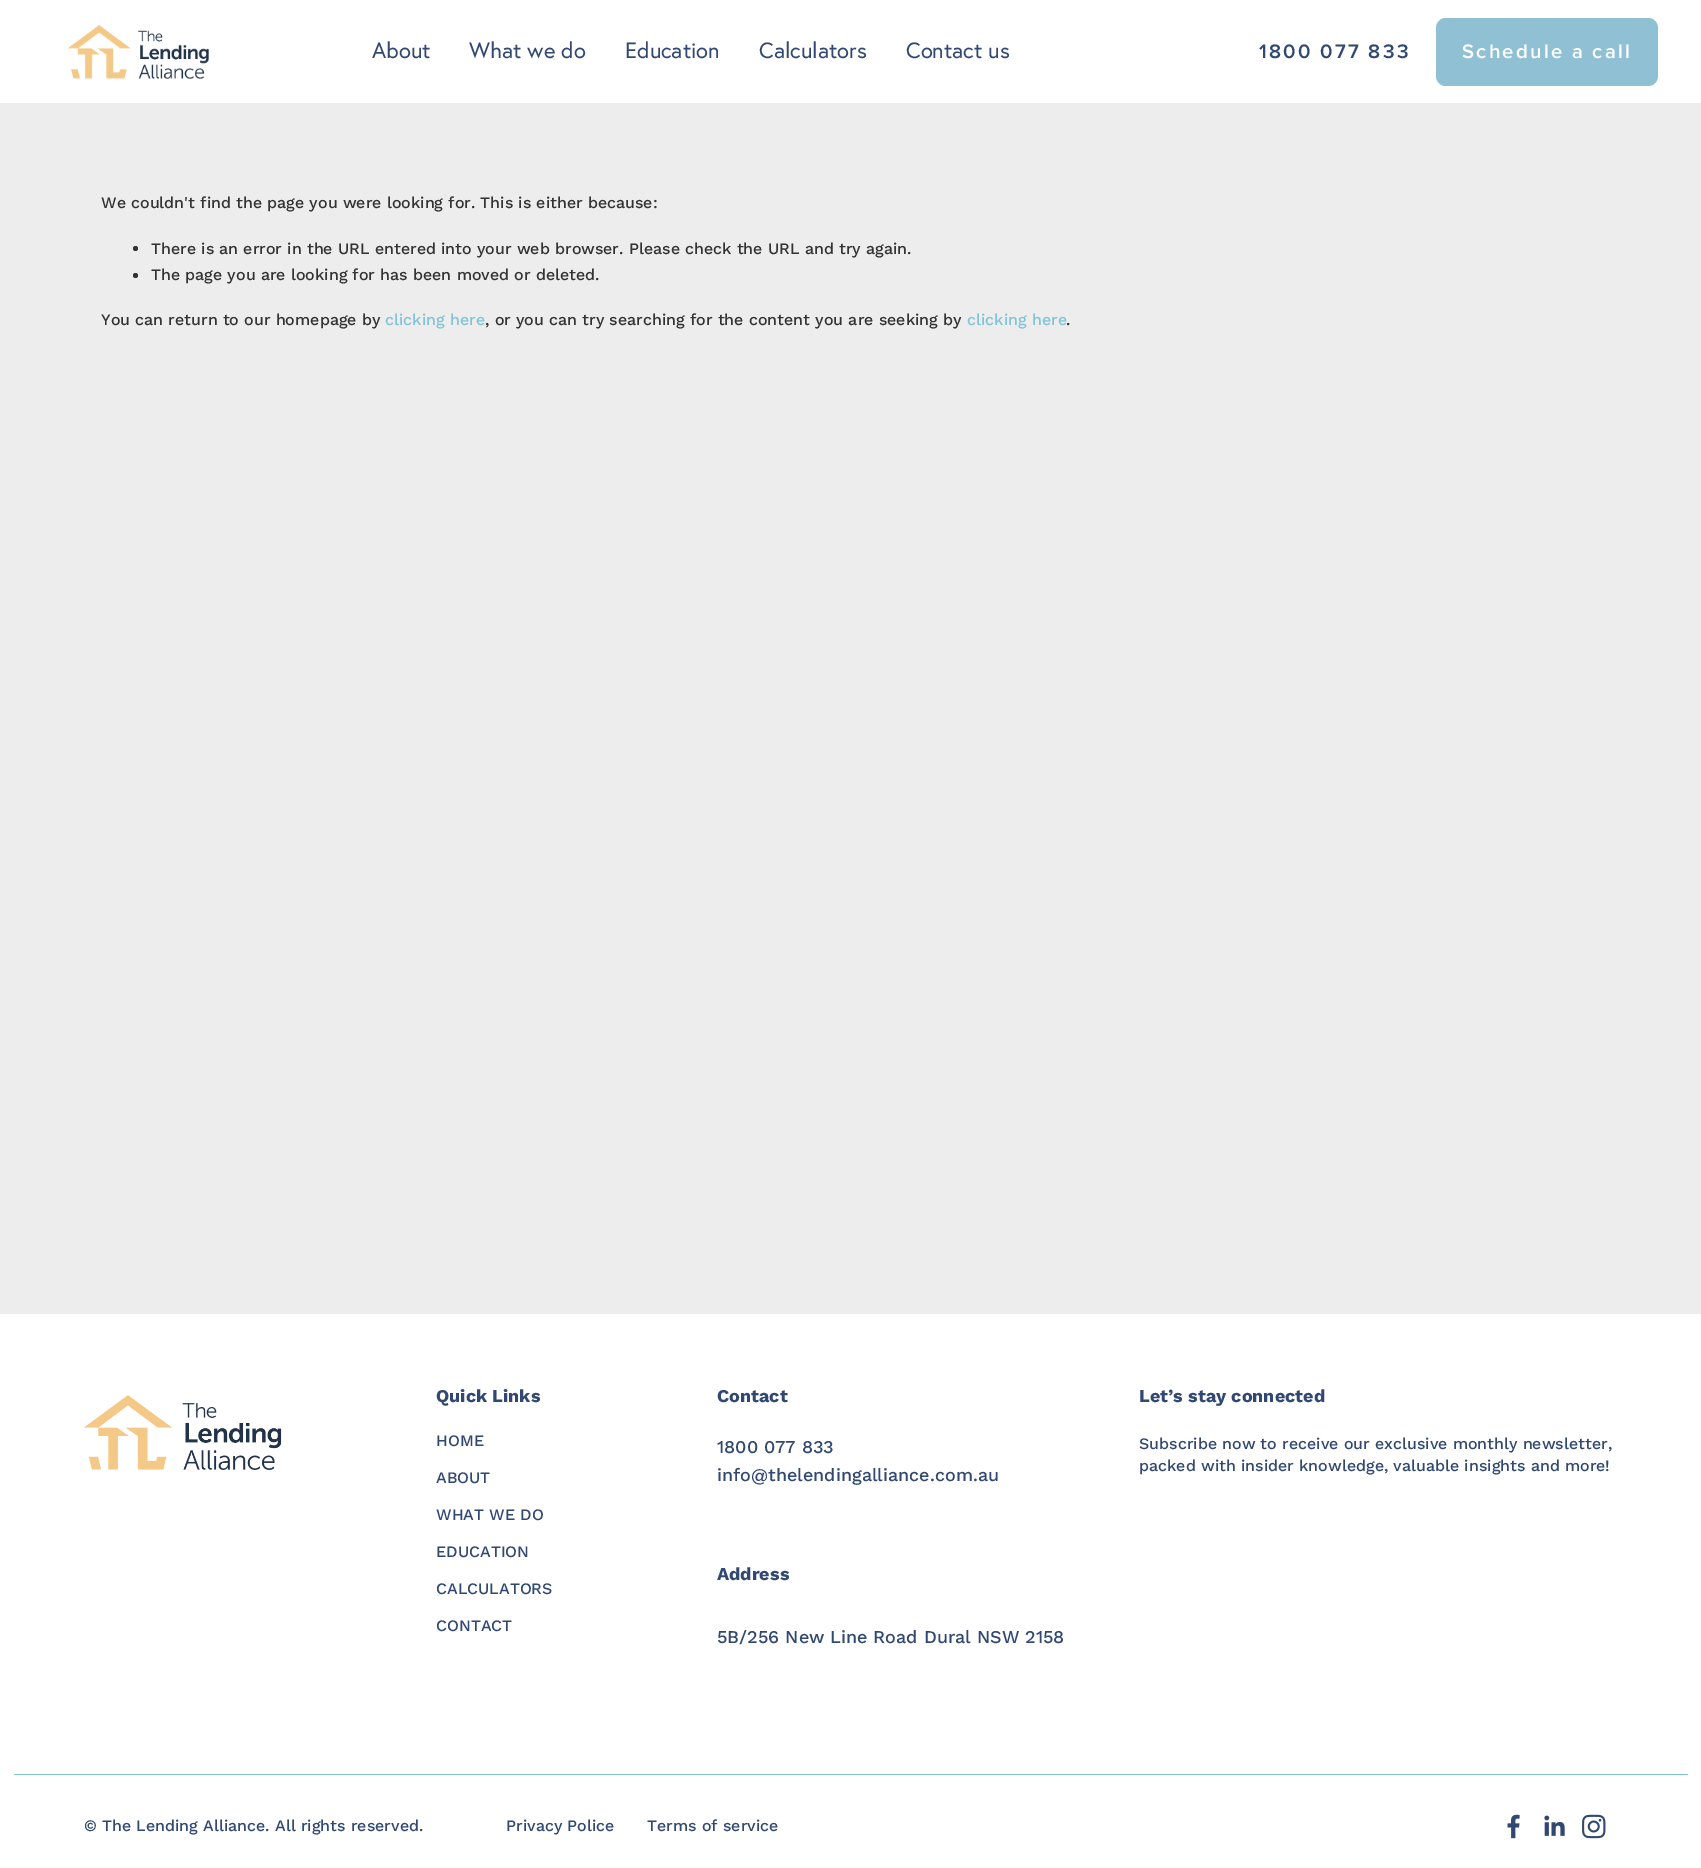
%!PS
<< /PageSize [1701 1868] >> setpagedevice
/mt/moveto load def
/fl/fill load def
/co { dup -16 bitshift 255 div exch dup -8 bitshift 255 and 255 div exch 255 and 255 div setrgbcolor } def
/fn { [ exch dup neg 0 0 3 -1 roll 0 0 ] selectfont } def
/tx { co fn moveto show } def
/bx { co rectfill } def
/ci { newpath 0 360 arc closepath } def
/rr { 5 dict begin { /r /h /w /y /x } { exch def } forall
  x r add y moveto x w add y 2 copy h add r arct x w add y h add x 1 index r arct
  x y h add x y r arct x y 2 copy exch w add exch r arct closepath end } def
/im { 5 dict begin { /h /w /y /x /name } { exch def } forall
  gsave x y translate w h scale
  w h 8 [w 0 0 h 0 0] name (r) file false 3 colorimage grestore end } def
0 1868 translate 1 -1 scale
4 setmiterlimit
0 0 1701 1868 16#EDEDED bx
0 0 1701 103 16#FFFFFF bx
(media/1.raw) 67 24 142 55 im
16#90C0D4 co
1436 18 222 68 10 rr fl
16#333333 co
135.5 248.5 2.5 ci fl
135.5 275.5 2.5 ci fl
0 1314 1701 554 16#FFFFFF bx
(media/2.raw) 84 1395 198 75 im
14 1774 1674 1 16#81C3D7 bx
(media/3.raw) 1507 1814 13 25 im
(media/4.raw) 1544 1815 21 21 im
(media/5.raw) 1582 1814 24 25 im
(About) 372 58 /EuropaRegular-Regular 22 16#314972 tx
(What we do) 469 58 /EuropaRegular-Regular 22 16#314972 tx
(Education) 625 58 /EuropaRegular-Regular 22 16#314972 tx
(Calculators) 759 58 /EuropaRegular-Regular 22 16#314972 tx
(Contact us) 906 58 /EuropaRegular-Regular 22 16#314972 tx
/ProximaNova-SemiBold 20.25 fn
1259 58 mt 2.25 0 (1800 077 833) ashow
16#FFFFFF co
1462 58 mt 2.25 0 (Schedule a call) ashow
(We couldn't find the page you were looking for. This is either because:) 101 208 /WorkSans-Medium 16 16#333333 tx
(There is an error in the URL entered into your web browser. Please check the URL and try again.) 151 254 /WorkSans-Medium 16 16#333333 tx
(The page you are looking for has been moved or deleted.) 151 280 /WorkSans-Medium 16 16#333333 tx
(You can return to our homepage by) 101 325 /WorkSans-Medium 16 16#333333 tx
(clicking here) 385 325 /WorkSans-Medium 16 16#81C3D7 tx
(, or you can try searching for the content you are seeking by) 485 325 /WorkSans-Medium 16 16#333333 tx
(clicking here) 967 325 /WorkSans-Medium 16 16#81C3D7 tx
(.) 1066 325 /WorkSans-Medium 16 16#333333 tx
(Quick Links) 436 1402 /WorkSans-Bold 18 16#314972 tx
(Contact) 717 1402 /WorkSans-Bold 18 16#314972 tx
(Let’s stay connected) 1139 1402 /WorkSans-Bold 18 16#314972 tx
(HOME) 436 1446 /WorkSans-Medium 16 16#314972 tx
(ABOUT) 436 1483 /WorkSans-Medium 16 16#314972 tx
(WHAT WE DO) 436 1520 /WorkSans-Medium 16 16#314972 tx
(EDUCATION) 436 1557 /WorkSans-Medium 16 16#314972 tx
(CALCULATORS) 436 1594 /WorkSans-Medium 16 16#314972 tx
(CONTACT) 436 1631 /WorkSans-Medium 16 16#314972 tx
(1800 077 833) 717 1453 /WorkSans-Medium 18 16#314972 tx
(info@thelendingalliance.com.au) 717 1481 /WorkSans-Medium 18 16#314972 tx
(Subscribe now to receive our exclusive monthly newsletter,) 1139 1449 /WorkSans-Medium 16 16#314972 tx
(packed with insider knowledge, valuable insights and more!) 1139 1471 /WorkSans-Medium 16 16#314972 tx
(Address) 717 1580 /WorkSans-Bold 18 16#314972 tx
(5B/256 New Line Road Dural NSW 2158) 717 1643 /WorkSans-Medium 18 16#314972 tx
(© The Lending Alliance. All rights reserved.) 84 1831 /WorkSans-Medium 16 16#314972 tx
(Privacy Police) 506 1831 /WorkSans-Medium 16 16#314972 tx
(Terms of service) 647 1831 /WorkSans-Medium 16 16#314972 tx
showpage
